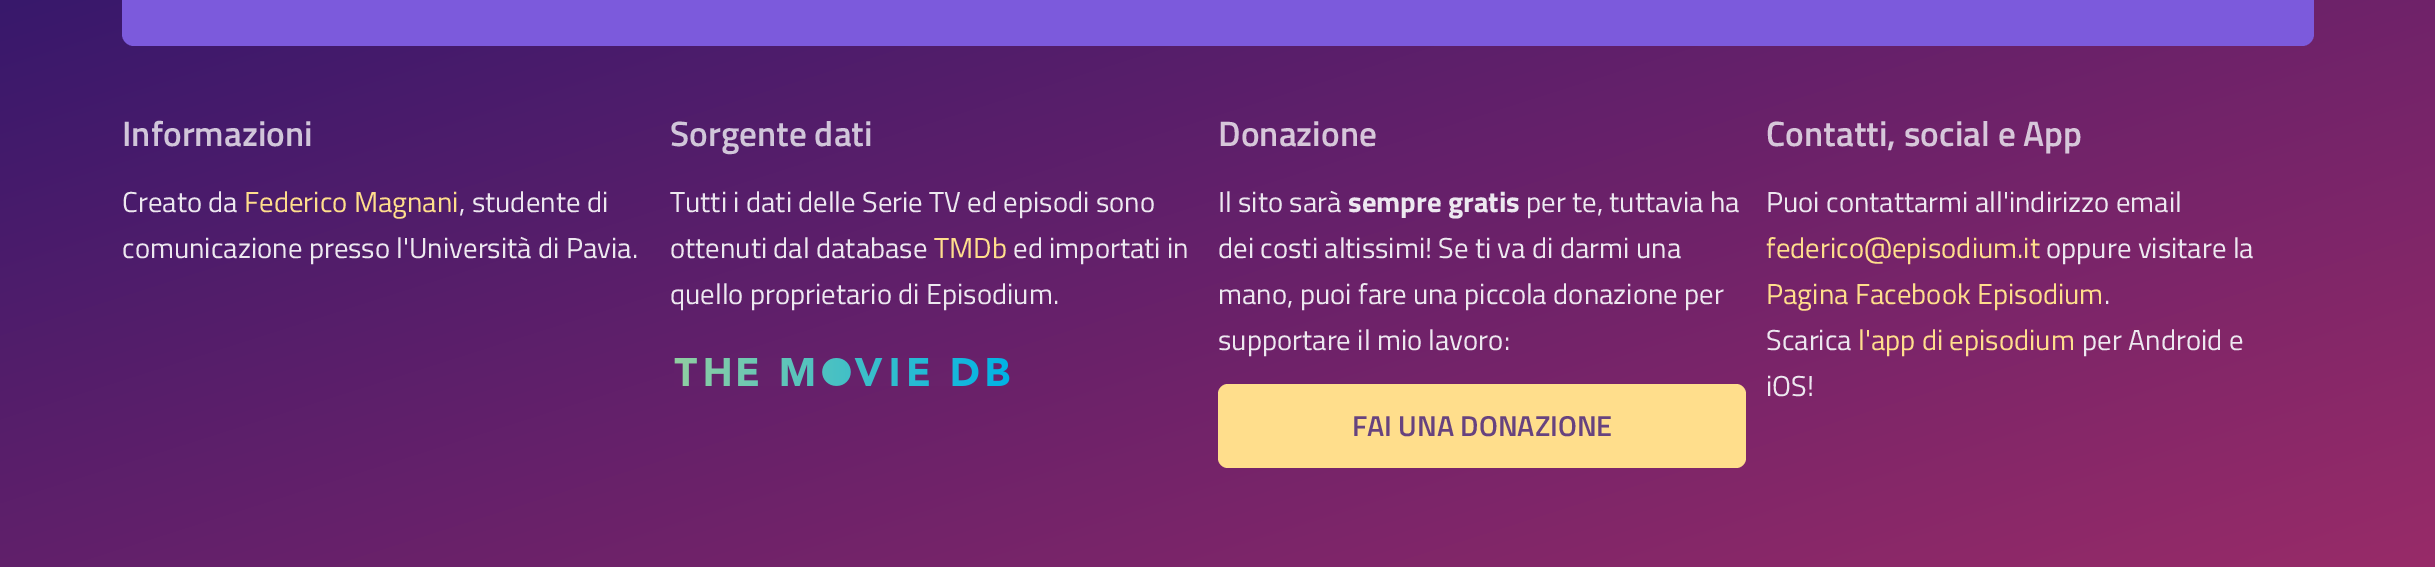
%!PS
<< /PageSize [2435 567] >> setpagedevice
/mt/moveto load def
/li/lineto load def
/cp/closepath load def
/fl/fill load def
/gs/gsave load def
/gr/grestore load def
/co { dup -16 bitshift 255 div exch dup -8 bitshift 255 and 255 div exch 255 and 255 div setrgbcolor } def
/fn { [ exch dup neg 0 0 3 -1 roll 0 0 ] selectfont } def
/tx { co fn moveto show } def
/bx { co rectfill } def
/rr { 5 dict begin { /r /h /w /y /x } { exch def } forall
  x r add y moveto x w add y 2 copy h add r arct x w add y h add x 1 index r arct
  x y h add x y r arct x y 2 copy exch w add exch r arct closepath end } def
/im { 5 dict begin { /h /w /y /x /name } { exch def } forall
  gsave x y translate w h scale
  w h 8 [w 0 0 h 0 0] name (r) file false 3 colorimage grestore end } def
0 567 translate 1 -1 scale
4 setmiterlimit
0 0 2435 567 16#FFFFFF bx
gs 0 0 mt 2435 0 li 2435 567 li 0 567 li cp clip newpath
<< /ShadingType 2 /ColorSpace /DeviceRGB /Coords [993 -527 1443 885] /Extend [true true] /Function << /FunctionType 2 /Domain [0 1] /C0 [.161 .082 .424] /C1 [.596 .169 .408] /N 1 >> >> shfill gr
16#7C5ADC co
122 -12 2192 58 12 rr fl
(media/1.raw) 674 358 336 28 im
16#FFDE8C co
1218 384 528 84 10 rr fl
(Informazioni) 122 146 /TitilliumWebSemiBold-SemiBold 35.25 16#D1C6DA tx
(Creato da) 122 212 /TitilliumWeb-Regular 28.75 16#EDE8F0 tx
(Federico Magnani) 244 212 /TitilliumWeb-Regular 28.75 16#FFDE8C tx
(, studente di) 459 212 /TitilliumWeb-Regular 28.75 16#EDE8F0 tx
(comunicazione presso l'Università di Pavia.) 122 258 /TitilliumWeb-Regular 28.75 16#EDE8F0 tx
(Sorgente dati) 670 146 /TitilliumWebSemiBold-SemiBold 35.25 16#D1C6DA tx
(Tutti i dati delle Serie TV ed episodi sono) 670 212 /TitilliumWeb-Regular 28.75 16#EDE8F0 tx
(ottenuti dal database) 670 258 /TitilliumWeb-Regular 28.75 16#EDE8F0 tx
(TMDb) 934 258 /TitilliumWeb-Regular 28.75 16#FFDE8C tx
(ed importati in) 1013 258 /TitilliumWeb-Regular 28.75 16#EDE8F0 tx
(quello proprietario di Episodium.) 670 304 /TitilliumWeb-Regular 28.75 16#EDE8F0 tx
(Donazione) 1218 146 /TitilliumWebSemiBold-SemiBold 35.25 16#D7C7DA tx
(Il sito sarà) 1218 212 /TitilliumWeb-Regular 28.75 16#EDE8F0 tx
(sempre gratis) 1348 212 /TitilliumWeb-Bold 28.75 16#EDE8F0 tx
(per te, tuttavia ha) 1526 212 /TitilliumWeb-Regular 28.75 16#EDE8F0 tx
(dei costi altissimi! Se ti va di darmi una) 1218 258 /TitilliumWeb-Regular 28.75 16#EDE8F0 tx
(mano, puoi fare una piccola donazione per) 1218 304 /TitilliumWeb-Regular 28.75 16#EDE8F0 tx
(supportare il mio lavoro:) 1218 350 /TitilliumWeb-Regular 28.75 16#EDE8F0 tx
(FAI UNA DONAZIONE) 1352 436 /TitilliumWebSemiBold-SemiBold 28.75 16#67437F tx
(Contatti, social e App) 1766 146 /TitilliumWebSemiBold-SemiBold 35.25 16#D7C7DA tx
(Puoi contattarmi all'indirizzo email) 1766 212 /TitilliumWeb-Regular 28.75 16#EDE8F0 tx
(federico@episodium.it) 1766 258 /TitilliumWeb-Regular 28.75 16#FFDE8C tx
(oppure visitare la) 2046 258 /TitilliumWeb-Regular 28.75 16#EDE8F0 tx
(Pagina Facebook Episodium) 1766 304 /TitilliumWeb-Regular 28.75 16#FFDE8C tx
(.) 2104 304 /TitilliumWeb-Regular 28.75 16#EDE8F0 tx
(Scarica) 1766 350 /TitilliumWeb-Regular 28.75 16#EDE8F0 tx
(l'app di episodium) 1858 350 /TitilliumWeb-Regular 28.75 16#FFDE8C tx
(per Android e) 2082 350 /TitilliumWeb-Regular 28.75 16#EDE8F0 tx
(iOS!) 1766 396 /TitilliumWeb-Regular 28.75 16#EDE8F0 tx
showpage
